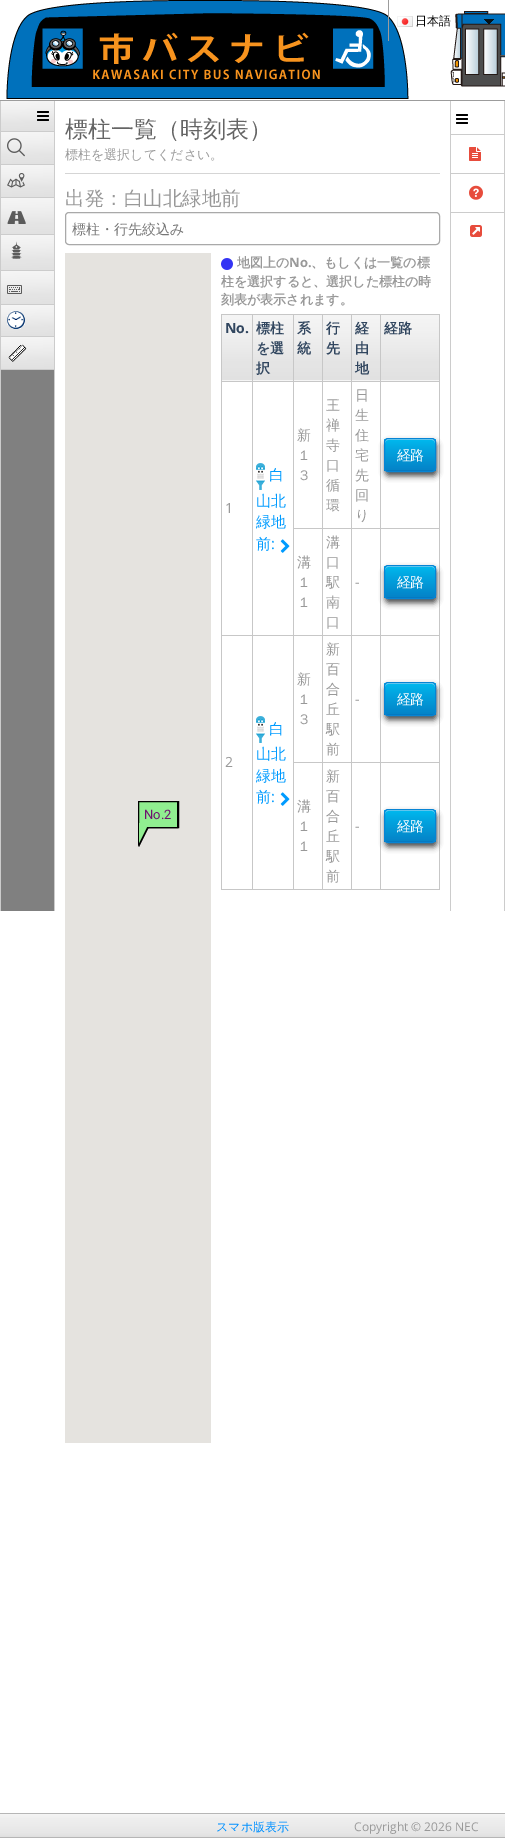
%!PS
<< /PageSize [505 1838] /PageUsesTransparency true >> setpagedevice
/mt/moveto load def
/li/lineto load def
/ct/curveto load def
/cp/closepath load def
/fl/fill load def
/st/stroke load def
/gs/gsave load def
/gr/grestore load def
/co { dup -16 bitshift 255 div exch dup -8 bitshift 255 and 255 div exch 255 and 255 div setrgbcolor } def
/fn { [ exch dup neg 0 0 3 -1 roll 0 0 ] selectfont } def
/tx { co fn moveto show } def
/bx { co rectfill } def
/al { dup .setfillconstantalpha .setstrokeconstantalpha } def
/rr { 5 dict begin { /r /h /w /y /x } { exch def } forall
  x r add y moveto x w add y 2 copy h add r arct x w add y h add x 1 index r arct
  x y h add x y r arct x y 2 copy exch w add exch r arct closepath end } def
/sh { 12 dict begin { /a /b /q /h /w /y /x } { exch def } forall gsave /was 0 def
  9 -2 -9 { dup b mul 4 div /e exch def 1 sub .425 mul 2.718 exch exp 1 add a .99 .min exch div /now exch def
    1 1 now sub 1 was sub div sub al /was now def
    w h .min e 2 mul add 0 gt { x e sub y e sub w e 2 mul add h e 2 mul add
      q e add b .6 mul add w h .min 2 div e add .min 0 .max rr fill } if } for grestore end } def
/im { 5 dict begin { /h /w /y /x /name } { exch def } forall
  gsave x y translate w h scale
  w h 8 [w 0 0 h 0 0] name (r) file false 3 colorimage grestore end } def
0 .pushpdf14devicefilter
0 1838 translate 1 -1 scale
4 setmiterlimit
0 0 505 1838 16#FFFFFF bx
0 100 505 1 16#9C9C9C bx
(media/1.raw) 6 0 499 99 im
388 0 1 41 16#9C9C9C bx
(media/2.raw) 397 16 16 11 im
(media/3.raw) 484 19 10 5 im
1 370 53 541 16#808080 bx
54 101 1 810 16#CCCCCC bx
0 101 1 810 16#CCCCCC bx
gs 1 101 mt 54 101 li 54 131 li 1 131 li cp clip newpath
<< /ShadingType 2 /ColorSpace /DeviceRGB /Coords [27 101 28 131] /Extend [true true] /Function << /FunctionType 3 /Domain [0 1] /Functions [<< /FunctionType 2 /Domain [0 1] /C0 [.961 .961 .961] /C1 [.937 .937 .937] /N 1 >> << /FunctionType 2 /Domain [0 1] /C0 [.937 .937 .937] /C1 [.894 .894 .894] /N 1 >> << /FunctionType 2 /Domain [0 1] /C0 [.894 .894 .894] /C1 [.882 .882 .882] /N 1 >>] /Bounds [.34 .77] /Encode [0 1 0 1 0 1] >> >> shfill gr
1 131 53 1 16#CCCCCC bx
(media/4.raw) 37 111 12 10 im
gs 1 132 mt 54 132 li 54 164 li 1 164 li cp clip newpath
<< /ShadingType 2 /ColorSpace /DeviceRGB /Coords [27 132 28 164] /Extend [true true] /Function << /FunctionType 3 /Domain [0 1] /Functions [<< /FunctionType 2 /Domain [0 1] /C0 [.961 .961 .961] /C1 [.937 .937 .937] /N 1 >> << /FunctionType 2 /Domain [0 1] /C0 [.937 .937 .937] /C1 [.894 .894 .894] /N 1 >> << /FunctionType 2 /Domain [0 1] /C0 [.894 .894 .894] /C1 [.882 .882 .882] /N 1 >>] /Bounds [.34 .77] /Encode [0 1 0 1 0 1] >> >> shfill gr
1 164 53 1 16#CCCCCC bx
(media/5.raw) 7 138 18 19 im
gs 1 165 mt 54 165 li 54 197 li 1 197 li cp clip newpath
<< /ShadingType 2 /ColorSpace /DeviceRGB /Coords [27 165 28 197] /Extend [true true] /Function << /FunctionType 3 /Domain [0 1] /Functions [<< /FunctionType 2 /Domain [0 1] /C0 [.961 .961 .961] /C1 [.937 .937 .937] /N 1 >> << /FunctionType 2 /Domain [0 1] /C0 [.937 .937 .937] /C1 [.894 .894 .894] /N 1 >> << /FunctionType 2 /Domain [0 1] /C0 [.894 .894 .894] /C1 [.882 .882 .882] /N 1 >>] /Bounds [.34 .77] /Encode [0 1 0 1 0 1] >> >> shfill gr
1 197 53 1 16#CCCCCC bx
(media/6.raw) 7 173 18 15 im
gs 1 198 mt 54 198 li 54 234 li 1 234 li cp clip newpath
<< /ShadingType 2 /ColorSpace /DeviceRGB /Coords [27 198 28 234] /Extend [true true] /Function << /FunctionType 3 /Domain [0 1] /Functions [<< /FunctionType 2 /Domain [0 1] /C0 [.961 .961 .961] /C1 [.937 .937 .937] /N 1 >> << /FunctionType 2 /Domain [0 1] /C0 [.937 .937 .937] /C1 [.894 .894 .894] /N 1 >> << /FunctionType 2 /Domain [0 1] /C0 [.894 .894 .894] /C1 [.882 .882 .882] /N 1 >>] /Bounds [.34 .77] /Encode [0 1 0 1 0 1] >> >> shfill gr
1 234 53 1 16#CCCCCC bx
(media/7.raw) 7 211 19 13 im
gs 1 235 mt 54 235 li 54 270 li 1 270 li cp clip newpath
<< /ShadingType 2 /ColorSpace /DeviceRGB /Coords [27 235 28 270] /Extend [true true] /Function << /FunctionType 3 /Domain [0 1] /Functions [<< /FunctionType 2 /Domain [0 1] /C0 [.961 .961 .961] /C1 [.937 .937 .937] /N 1 >> << /FunctionType 2 /Domain [0 1] /C0 [.937 .937 .937] /C1 [.894 .894 .894] /N 1 >> << /FunctionType 2 /Domain [0 1] /C0 [.894 .894 .894] /C1 [.882 .882 .882] /N 1 >>] /Bounds [.34 .77] /Encode [0 1 0 1 0 1] >> >> shfill gr
1 270 53 1 16#CCCCCC bx
(media/8.raw) 11 241 11 18 im
gs 1 271 mt 54 271 li 54 304 li 1 304 li cp clip newpath
<< /ShadingType 2 /ColorSpace /DeviceRGB /Coords [27 271 28 304] /Extend [true true] /Function << /FunctionType 3 /Domain [0 1] /Functions [<< /FunctionType 2 /Domain [0 1] /C0 [.961 .961 .961] /C1 [.937 .937 .937] /N 1 >> << /FunctionType 2 /Domain [0 1] /C0 [.937 .937 .937] /C1 [.894 .894 .894] /N 1 >> << /FunctionType 2 /Domain [0 1] /C0 [.894 .894 .894] /C1 [.882 .882 .882] /N 1 >>] /Bounds [.34 .77] /Encode [0 1 0 1 0 1] >> >> shfill gr
1 304 53 1 16#CCCCCC bx
(media/9.raw) 7 285 15 9 im
gs 1 305 mt 54 305 li 54 336 li 1 336 li cp clip newpath
<< /ShadingType 2 /ColorSpace /DeviceRGB /Coords [27 305 28 336] /Extend [true true] /Function << /FunctionType 3 /Domain [0 1] /Functions [<< /FunctionType 2 /Domain [0 1] /C0 [.961 .961 .961] /C1 [.937 .937 .937] /N 1 >> << /FunctionType 2 /Domain [0 1] /C0 [.937 .937 .937] /C1 [.894 .894 .894] /N 1 >> << /FunctionType 2 /Domain [0 1] /C0 [.894 .894 .894] /C1 [.882 .882 .882] /N 1 >>] /Bounds [.34 .77] /Encode [0 1 0 1 0 1] >> >> shfill gr
1 336 53 1 16#CCCCCC bx
(media/10.raw) 7 311 18 18 im
gs 1 337 mt 54 337 li 54 369 li 1 369 li cp clip newpath
<< /ShadingType 2 /ColorSpace /DeviceRGB /Coords [27 337 28 369] /Extend [true true] /Function << /FunctionType 3 /Domain [0 1] /Functions [<< /FunctionType 2 /Domain [0 1] /C0 [.961 .961 .961] /C1 [.937 .937 .937] /N 1 >> << /FunctionType 2 /Domain [0 1] /C0 [.937 .937 .937] /C1 [.894 .894 .894] /N 1 >> << /FunctionType 2 /Domain [0 1] /C0 [.894 .894 .894] /C1 [.882 .882 .882] /N 1 >>] /Bounds [.34 .77] /Encode [0 1 0 1 0 1] >> >> shfill gr
1 369 53 1 16#CCCCCC bx
(media/11.raw) 8 344 19 18 im
65 173 375 1 16#D5D5D5 bx
16#A9A9A9 co
65.5 212.5 374 32 3.5 rr st
65 253 146 1190 16#E5E3DF bx
16#000000 co
139.5 801.5 39 26 rectstroke
139 827 mt 149 827 li 139 847 li cp fl
16#90EE90 co
138.5 801.5 mt 177.5 801.5 li 177.5 827.5 li 138.5 827.5 li cp gs fl gr
16#000000 co
st
138 827 mt 148 827 li 138 847 li cp fl
16#90EE90 co
139 823 mt 149 823 li 139 843 li cp fl
(media/12.raw) 221 258 12 12 im
gs 222 315 mt 252 315 li 252 380 li 222 380 li cp clip newpath
<< /ShadingType 2 /ColorSpace /DeviceRGB /Coords [238 315 238 380] /Extend [true true] /Function << /FunctionType 3 /Domain [0 1] /Functions [<< /FunctionType 2 /Domain [0 1] /C0 [.961 .961 .961] /C1 [.937 .937 .937] /N 1 >> << /FunctionType 2 /Domain [0 1] /C0 [.937 .937 .937] /C1 [.894 .894 .894] /N 1 >> << /FunctionType 2 /Domain [0 1] /C0 [.894 .894 .894] /C1 [.882 .882 .882] /N 1 >>] /Bounds [.34 .77] /Encode [0 1 0 1 0 1] >> >> shfill gr
gs 222 380 mt 253 380 li 253 381 li 222 381 li cp clip newpath
<< /ShadingType 2 /ColorSpace /DeviceRGB /Coords [238 380 238 445] /Extend [true true] /Function << /FunctionType 3 /Domain [0 1] /Functions [<< /FunctionType 2 /Domain [0 1] /C0 [.961 .961 .961] /C1 [.937 .937 .937] /N 1 >> << /FunctionType 2 /Domain [0 1] /C0 [.937 .937 .937] /C1 [.894 .894 .894] /N 1 >> << /FunctionType 2 /Domain [0 1] /C0 [.894 .894 .894] /C1 [.882 .882 .882] /N 1 >>] /Bounds [.34 .77] /Encode [0 1 0 1 0 1] >> >> shfill gr
380 314 60 1 16#C7C7C7 bx
gs 380 380 mt 440 380 li 440 381 li 380 381 li cp clip newpath
<< /ShadingType 2 /ColorSpace /DeviceRGB /Coords [410 380 410 445] /Extend [true true] /Function << /FunctionType 3 /Domain [0 1] /Functions [<< /FunctionType 2 /Domain [0 1] /C0 [.961 .961 .961] /C1 [.937 .937 .937] /N 1 >> << /FunctionType 2 /Domain [0 1] /C0 [.937 .937 .937] /C1 [.894 .894 .894] /N 1 >> << /FunctionType 2 /Domain [0 1] /C0 [.894 .894 .894] /C1 [.882 .882 .882] /N 1 >>] /Bounds [.34 .77] /Encode [0 1 0 1 0 1] >> >> shfill gr
380 381 60 1 16#C7C7C7 bx
380 528 60 1 16#C7C7C7 bx
380 635 60 1 16#C7C7C7 bx
380 762 60 1 16#C7C7C7 bx
439 762 1 128 16#C7C7C7 bx
380 889 60 1 16#C7C7C7 bx
380 762 1 128 16#C7C7C7 bx
351 762 30 1 16#C7C7C7 bx
380 635 1 128 16#C7C7C7 bx
351 635 30 1 16#C7C7C7 bx
380 528 1 108 16#C7C7C7 bx
351 528 30 1 16#C7C7C7 bx
380 381 1 148 16#C7C7C7 bx
351 381 30 1 16#C7C7C7 bx
380 314 1 68 16#C7C7C7 bx
351 314 30 1 16#C7C7C7 bx
gs 351 380 mt 380 380 li 380 381 li 351 381 li cp clip newpath
<< /ShadingType 2 /ColorSpace /DeviceRGB /Coords [366 380 366 445] /Extend [true true] /Function << /FunctionType 3 /Domain [0 1] /Functions [<< /FunctionType 2 /Domain [0 1] /C0 [.961 .961 .961] /C1 [.937 .937 .937] /N 1 >> << /FunctionType 2 /Domain [0 1] /C0 [.937 .937 .937] /C1 [.894 .894 .894] /N 1 >> << /FunctionType 2 /Domain [0 1] /C0 [.894 .894 .894] /C1 [.882 .882 .882] /N 1 >>] /Bounds [.34 .77] /Encode [0 1 0 1 0 1] >> >> shfill gr
351 889 30 1 16#C7C7C7 bx
351 762 1 128 16#C7C7C7 bx
322 762 30 1 16#C7C7C7 bx
351 635 1 128 16#C7C7C7 bx
322 635 30 1 16#C7C7C7 bx
351 528 1 108 16#C7C7C7 bx
322 528 30 1 16#C7C7C7 bx
351 381 1 148 16#C7C7C7 bx
322 381 30 1 16#C7C7C7 bx
351 314 1 68 16#C7C7C7 bx
322 314 30 1 16#C7C7C7 bx
gs 294 380 mt 323 380 li 323 381 li 294 381 li cp clip newpath
<< /ShadingType 2 /ColorSpace /DeviceRGB /Coords [309 380 309 445] /Extend [true true] /Function << /FunctionType 3 /Domain [0 1] /Functions [<< /FunctionType 2 /Domain [0 1] /C0 [.961 .961 .961] /C1 [.937 .937 .937] /N 1 >> << /FunctionType 2 /Domain [0 1] /C0 [.937 .937 .937] /C1 [.894 .894 .894] /N 1 >> << /FunctionType 2 /Domain [0 1] /C0 [.894 .894 .894] /C1 [.882 .882 .882] /N 1 >>] /Bounds [.34 .77] /Encode [0 1 0 1 0 1] >> >> shfill gr
322 889 30 1 16#C7C7C7 bx
322 762 1 128 16#C7C7C7 bx
293 762 30 1 16#C7C7C7 bx
322 635 1 128 16#C7C7C7 bx
293 635 30 1 16#C7C7C7 bx
322 528 1 108 16#C7C7C7 bx
293 528 30 1 16#C7C7C7 bx
322 381 1 148 16#C7C7C7 bx
293 381 30 1 16#C7C7C7 bx
322 314 1 68 16#C7C7C7 bx
293 314 30 1 16#C7C7C7 bx
gs 253 380 mt 294 380 li 294 381 li 253 381 li cp clip newpath
<< /ShadingType 2 /ColorSpace /DeviceRGB /Coords [274 380 274 445] /Extend [true true] /Function << /FunctionType 3 /Domain [0 1] /Functions [<< /FunctionType 2 /Domain [0 1] /C0 [.961 .961 .961] /C1 [.937 .937 .937] /N 1 >> << /FunctionType 2 /Domain [0 1] /C0 [.937 .937 .937] /C1 [.894 .894 .894] /N 1 >> << /FunctionType 2 /Domain [0 1] /C0 [.894 .894 .894] /C1 [.882 .882 .882] /N 1 >>] /Bounds [.34 .77] /Encode [0 1 0 1 0 1] >> >> shfill gr
293 889 30 1 16#C7C7C7 bx
293 762 1 128 16#C7C7C7 bx
293 635 1 128 16#C7C7C7 bx
252 635 42 1 16#C7C7C7 bx
293 528 1 108 16#C7C7C7 bx
293 381 1 148 16#C7C7C7 bx
252 381 42 1 16#C7C7C7 bx
293 314 1 68 16#C7C7C7 bx
252 314 42 1 16#C7C7C7 bx
252 889 42 1 16#C7C7C7 bx
252 635 1 255 16#C7C7C7 bx
221 635 32 1 16#C7C7C7 bx
252 381 1 255 16#C7C7C7 bx
221 381 32 1 16#C7C7C7 bx
252 314 1 68 16#C7C7C7 bx
221 314 32 1 16#C7C7C7 bx
221 889 32 1 16#C7C7C7 bx
221 635 1 255 16#C7C7C7 bx
221 381 1 255 16#C7C7C7 bx
221 314 1 68 16#C7C7C7 bx
gs 253 315 mt 293 315 li 293 380 li 253 380 li cp clip newpath
<< /ShadingType 2 /ColorSpace /DeviceRGB /Coords [274 315 274 380] /Extend [true true] /Function << /FunctionType 3 /Domain [0 1] /Functions [<< /FunctionType 2 /Domain [0 1] /C0 [.961 .961 .961] /C1 [.937 .937 .937] /N 1 >> << /FunctionType 2 /Domain [0 1] /C0 [.937 .937 .937] /C1 [.894 .894 .894] /N 1 >> << /FunctionType 2 /Domain [0 1] /C0 [.894 .894 .894] /C1 [.882 .882 .882] /N 1 >>] /Bounds [.34 .77] /Encode [0 1 0 1 0 1] >> >> shfill gr
gs 294 315 mt 322 315 li 322 380 li 294 380 li cp clip newpath
<< /ShadingType 2 /ColorSpace /DeviceRGB /Coords [309 315 309 380] /Extend [true true] /Function << /FunctionType 3 /Domain [0 1] /Functions [<< /FunctionType 2 /Domain [0 1] /C0 [.961 .961 .961] /C1 [.937 .937 .937] /N 1 >> << /FunctionType 2 /Domain [0 1] /C0 [.937 .937 .937] /C1 [.894 .894 .894] /N 1 >> << /FunctionType 2 /Domain [0 1] /C0 [.894 .894 .894] /C1 [.882 .882 .882] /N 1 >>] /Bounds [.34 .77] /Encode [0 1 0 1 0 1] >> >> shfill gr
gs 323 315 mt 351 315 li 351 380 li 323 380 li cp clip newpath
<< /ShadingType 2 /ColorSpace /DeviceRGB /Coords [337 315 337 380] /Extend [true true] /Function << /FunctionType 3 /Domain [0 1] /Functions [<< /FunctionType 2 /Domain [0 1] /C0 [.961 .961 .961] /C1 [.937 .937 .937] /N 1 >> << /FunctionType 2 /Domain [0 1] /C0 [.937 .937 .937] /C1 [.894 .894 .894] /N 1 >> << /FunctionType 2 /Domain [0 1] /C0 [.894 .894 .894] /C1 [.882 .882 .882] /N 1 >>] /Bounds [.34 .77] /Encode [0 1 0 1 0 1] >> >> shfill gr
gs 323 380 mt 351 380 li 351 381 li 323 381 li cp clip newpath
<< /ShadingType 2 /ColorSpace /DeviceRGB /Coords [337 380 337 445] /Extend [true true] /Function << /FunctionType 3 /Domain [0 1] /Functions [<< /FunctionType 2 /Domain [0 1] /C0 [.961 .961 .961] /C1 [.937 .937 .937] /N 1 >> << /FunctionType 2 /Domain [0 1] /C0 [.937 .937 .937] /C1 [.894 .894 .894] /N 1 >> << /FunctionType 2 /Domain [0 1] /C0 [.894 .894 .894] /C1 [.882 .882 .882] /N 1 >>] /Bounds [.34 .77] /Encode [0 1 0 1 0 1] >> >> shfill gr
gs 352 315 mt 380 315 li 380 380 li 352 380 li cp clip newpath
<< /ShadingType 2 /ColorSpace /DeviceRGB /Coords [366 315 366 380] /Extend [true true] /Function << /FunctionType 3 /Domain [0 1] /Functions [<< /FunctionType 2 /Domain [0 1] /C0 [.961 .961 .961] /C1 [.937 .937 .937] /N 1 >> << /FunctionType 2 /Domain [0 1] /C0 [.937 .937 .937] /C1 [.894 .894 .894] /N 1 >> << /FunctionType 2 /Domain [0 1] /C0 [.894 .894 .894] /C1 [.882 .882 .882] /N 1 >>] /Bounds [.34 .77] /Encode [0 1 0 1 0 1] >> >> shfill gr
gs 381 315 mt 439 315 li 439 380 li 381 380 li cp clip newpath
<< /ShadingType 2 /ColorSpace /DeviceRGB /Coords [410 315 410 380] /Extend [true true] /Function << /FunctionType 3 /Domain [0 1] /Functions [<< /FunctionType 2 /Domain [0 1] /C0 [.961 .961 .961] /C1 [.937 .937 .937] /N 1 >> << /FunctionType 2 /Domain [0 1] /C0 [.937 .937 .937] /C1 [.894 .894 .894] /N 1 >> << /FunctionType 2 /Domain [0 1] /C0 [.894 .894 .894] /C1 [.882 .882 .882] /N 1 >>] /Bounds [.34 .77] /Encode [0 1 0 1 0 1] >> >> shfill gr
439 635 1 128 16#C7C7C7 bx
439 528 1 108 16#C7C7C7 bx
439 381 1 148 16#C7C7C7 bx
439 314 1 68 16#C7C7C7 bx
16#000000 co
385 442 52 34 4 3 .7 sh
gs
384 438 52 34 4 rr clip newpath
gs 384 439 mt 436 439 li 436 471 li 384 471 li cp clip newpath
<< /ShadingType 2 /ColorSpace /DeviceRGB /Coords [410 439 410 471] /Extend [true true] /Function << /FunctionType 3 /Domain [0 1] /Functions [<< /FunctionType 2 /Domain [0 1] /C0 [0 .729 .937] /C1 [.008 .659 .89] /N 1 >> << /FunctionType 2 /Domain [0 1] /C0 [.008 .659 .89] /C1 [.016 .514 .784] /N 1 >> << /FunctionType 2 /Domain [0 1] /C0 [.016 .514 .784] /C1 [.02 .475 .757] /N 1 >>] /Bounds [.26 .97] /Encode [0 1 0 1 0 1] >> >> shfill gr
gr
16#80DCF7 co
388 440 mt 432 440 li 434 440 435 441 435 443 ct 435 437 429 439 425 439 ct 395 439 li 391 439 385 437 385 443 ct 385 441 386 440 388 440 ct cp fl
16#0784D4 co
384.5 438.5 51 33 3.5 rr st
(media/13.raw) 256 463 9 27 im
(media/14.raw) 280 539 10 14 im
16#000000 co
385 569 52 34 4 3 .7 sh
gs
384 565 52 34 4 rr clip newpath
gs 384 566 mt 436 566 li 436 598 li 384 598 li cp clip newpath
<< /ShadingType 2 /ColorSpace /DeviceRGB /Coords [410 566 410 598] /Extend [true true] /Function << /FunctionType 3 /Domain [0 1] /Functions [<< /FunctionType 2 /Domain [0 1] /C0 [0 .729 .937] /C1 [.008 .659 .89] /N 1 >> << /FunctionType 2 /Domain [0 1] /C0 [.008 .659 .89] /C1 [.016 .514 .784] /N 1 >> << /FunctionType 2 /Domain [0 1] /C0 [.016 .514 .784] /C1 [.02 .475 .757] /N 1 >>] /Bounds [.26 .97] /Encode [0 1 0 1 0 1] >> >> shfill gr
gr
16#80DCF7 co
388 567 mt 432 567 li 434 567 435 568 435 570 ct 435 564 429 566 425 566 ct 395 566 li 391 566 385 564 385 570 ct 385 568 386 567 388 567 ct cp fl
16#0784D4 co
384.5 565.5 51 33 3.5 rr st
16#000000 co
385 686 52 34 4 3 .7 sh
gs
384 682 52 34 4 rr clip newpath
gs 384 683 mt 436 683 li 436 715 li 384 715 li cp clip newpath
<< /ShadingType 2 /ColorSpace /DeviceRGB /Coords [410 683 410 715] /Extend [true true] /Function << /FunctionType 3 /Domain [0 1] /Functions [<< /FunctionType 2 /Domain [0 1] /C0 [0 .729 .937] /C1 [.008 .659 .89] /N 1 >> << /FunctionType 2 /Domain [0 1] /C0 [.008 .659 .89] /C1 [.016 .514 .784] /N 1 >> << /FunctionType 2 /Domain [0 1] /C0 [.016 .514 .784] /C1 [.02 .475 .757] /N 1 >>] /Bounds [.26 .97] /Encode [0 1 0 1 0 1] >> >> shfill gr
gr
16#80DCF7 co
388 684 mt 432 684 li 434 684 435 685 435 687 ct 435 681 429 683 425 683 ct 395 683 li 391 683 385 681 385 687 ct 385 685 386 684 388 684 ct cp fl
16#0784D4 co
384.5 682.5 51 33 3.5 rr st
(media/13.raw) 256 716 9 27 im
(media/14.raw) 280 792 10 14 im
16#000000 co
385 813 52 34 4 3 .7 sh
gs
384 809 52 34 4 rr clip newpath
gs 384 810 mt 436 810 li 436 842 li 384 842 li cp clip newpath
<< /ShadingType 2 /ColorSpace /DeviceRGB /Coords [410 810 410 842] /Extend [true true] /Function << /FunctionType 3 /Domain [0 1] /Functions [<< /FunctionType 2 /Domain [0 1] /C0 [0 .729 .937] /C1 [.008 .659 .89] /N 1 >> << /FunctionType 2 /Domain [0 1] /C0 [.008 .659 .89] /C1 [.016 .514 .784] /N 1 >> << /FunctionType 2 /Domain [0 1] /C0 [.016 .514 .784] /C1 [.02 .475 .757] /N 1 >>] /Bounds [.26 .97] /Encode [0 1 0 1 0 1] >> >> shfill gr
gr
16#80DCF7 co
388 811 mt 432 811 li 434 811 435 812 435 814 ct 435 808 429 810 425 810 ct 395 810 li 391 810 385 808 385 814 ct 385 812 386 811 388 811 ct cp fl
16#0784D4 co
384.5 809.5 51 33 3.5 rr st
504 101 1 810 16#CCCCCC bx
450 101 1 810 16#CCCCCC bx
451 134 53 1 16#CCCCCC bx
(media/15.raw) 456 114 12 10 im
451 173 53 1 16#CCCCCC bx
(media/16.raw) 469 147 12 14 im
451 212 53 1 16#CCCCCC bx
(media/17.raw) 469 185 14 15 im
(media/18.raw) 470 225 12 12 im
gs 0 1814 mt 505 1814 li 505 1837 li 0 1837 li cp clip newpath
<< /ShadingType 2 /ColorSpace /DeviceRGB /Coords [253 1814 253 1837] /Extend [true true] /Function << /FunctionType 3 /Domain [0 1] /Functions [<< /FunctionType 2 /Domain [0 1] /C0 [.961 .961 .961] /C1 [.933 .933 .933] /N 1 >> << /FunctionType 2 /Domain [0 1] /C0 [.933 .933 .933] /C1 [.906 .906 .906] /N 1 >> << /FunctionType 2 /Domain [0 1] /C0 [.906 .906 .906] /C1 [.878 .878 .878] /N 1 >>] /Bounds [.23 .82] /Encode [0 1 0 1 0 1] >> >> shfill gr
0 1813 505 1 16#B6B6B6 bx
0 1837 505 1 16#B6B6B6 bx
(日本語) 415 25 /WenQuanYiZenHei-Medium 12 16#000000 tx
(標柱一覧（時刻表）) 65 137 /WenQuanYiZenHei-Medium 23 16#656565 tx
(標柱を選択してください。) 65 159 /WenQuanYiZenHei-Medium 13 16#999999 tx
(出発：白山北緑地前) 65 205 /WenQuanYiZenHei-Medium 19.5 16#999999 tx
(標柱・行先絞込み) 72 234 /WenQuanYiZenHei-Medium 14 16#777777 tx
(No.2) 144 819 /Roboto-Regular 13 16#6F116F tx
(地図上の) 237 267 /WenQuanYiZenHei-Bold 13 16#999999 tx
(No.) 289 267 /OpenSans-Bold 13 16#999999 tx
(、もしくは一覧の標) 311 267 /WenQuanYiZenHei-Bold 13 16#999999 tx
(柱を選択すると、選択した標柱の時) 221 286 /WenQuanYiZenHei-Bold 13 16#999999 tx
(刻表が表示されます。) 221 304 /WenQuanYiZenHei-Bold 13 16#999999 tx
(No.) 225 333 /OpenSans-Bold 14 16#31465F tx
(標柱) 256 333 /WenQuanYiZenHei-Bold 14 16#31465F tx
(を選) 256 353 /WenQuanYiZenHei-Bold 14 16#31465F tx
(択) 256 373 /WenQuanYiZenHei-Bold 14 16#31465F tx
(系) 297 333 /WenQuanYiZenHei-Bold 14 16#31465F tx
(統) 297 353 /WenQuanYiZenHei-Bold 14 16#31465F tx
(行) 326 333 /WenQuanYiZenHei-Bold 14 16#31465F tx
(先) 326 353 /WenQuanYiZenHei-Bold 14 16#31465F tx
(経) 355 333 /WenQuanYiZenHei-Bold 14 16#31465F tx
(由) 355 353 /WenQuanYiZenHei-Bold 14 16#31465F tx
(地) 355 373 /WenQuanYiZenHei-Bold 14 16#31465F tx
(経路) 384 333 /WenQuanYiZenHei-Bold 14 16#31465F tx
(新) 297 440 /WenQuanYiZenHei-Medium 14 16#999999 tx
(１) 297 460 /WenQuanYiZenHei-Medium 14 16#999999 tx
(３) 297 480 /WenQuanYiZenHei-Medium 14 16#999999 tx
(王) 326 410 /WenQuanYiZenHei-Medium 14 16#999999 tx
(禅) 326 430 /WenQuanYiZenHei-Medium 14 16#999999 tx
(寺) 326 450 /WenQuanYiZenHei-Medium 14 16#999999 tx
(口) 326 470 /WenQuanYiZenHei-Medium 14 16#999999 tx
(循) 326 490 /WenQuanYiZenHei-Medium 14 16#999999 tx
(環) 326 510 /WenQuanYiZenHei-Medium 14 16#999999 tx
(日) 355 400 /WenQuanYiZenHei-Medium 14 16#999999 tx
(生) 355 420 /WenQuanYiZenHei-Medium 14 16#999999 tx
(住) 355 440 /WenQuanYiZenHei-Medium 14 16#999999 tx
(宅) 355 460 /WenQuanYiZenHei-Medium 14 16#999999 tx
(先) 355 480 /WenQuanYiZenHei-Medium 14 16#999999 tx
(回) 355 500 /WenQuanYiZenHei-Medium 14 16#999999 tx
(り) 355 520 /WenQuanYiZenHei-Medium 14 16#999999 tx
16#FFFFFF co
397 460 mt -1 0 (経路) ashow
(1) 225 513 /OpenSans-Regular 14 16#999999 tx
(白) 269 480 /WenQuanYiZenHei-Medium 15 16#009BFF tx
(山北) 256 506 /WenQuanYiZenHei-Medium 15 16#009BFF tx
(緑地) 256 527 /WenQuanYiZenHei-Medium 15 16#009BFF tx
(前) 256 549 /WenQuanYiZenHei-Medium 15 16#009BFF tx
(:) 271 549 /OpenSans-Regular 15 16#009BFF tx
(溝) 297 567 /WenQuanYiZenHei-Medium 14 16#999999 tx
(１) 297 587 /WenQuanYiZenHei-Medium 14 16#999999 tx
(１) 297 607 /WenQuanYiZenHei-Medium 14 16#999999 tx
(溝) 326 547 /WenQuanYiZenHei-Medium 14 16#999999 tx
(口) 326 567 /WenQuanYiZenHei-Medium 14 16#999999 tx
(駅) 326 587 /WenQuanYiZenHei-Medium 14 16#999999 tx
(南) 326 607 /WenQuanYiZenHei-Medium 14 16#999999 tx
(口) 326 627 /WenQuanYiZenHei-Medium 14 16#999999 tx
(-) 355 587 /OpenSans-Regular 14 16#999999 tx
/WenQuanYiZenHei-Medium 14 fn
16#FFFFFF co
397 587 mt -1 0 (経路) ashow
(新) 297 684 /WenQuanYiZenHei-Medium 14 16#999999 tx
(１) 297 704 /WenQuanYiZenHei-Medium 14 16#999999 tx
(３) 297 724 /WenQuanYiZenHei-Medium 14 16#999999 tx
(新) 326 654 /WenQuanYiZenHei-Medium 14 16#999999 tx
(百) 326 674 /WenQuanYiZenHei-Medium 14 16#999999 tx
(合) 326 694 /WenQuanYiZenHei-Medium 14 16#999999 tx
(丘) 326 714 /WenQuanYiZenHei-Medium 14 16#999999 tx
(駅) 326 734 /WenQuanYiZenHei-Medium 14 16#999999 tx
(前) 326 754 /WenQuanYiZenHei-Medium 14 16#999999 tx
(-) 355 704 /OpenSans-Regular 14 16#999999 tx
/WenQuanYiZenHei-Medium 14 fn
16#FFFFFF co
397 704 mt -1 0 (経路) ashow
(2) 225 767 /OpenSans-Regular 14 16#999999 tx
(白) 269 734 /WenQuanYiZenHei-Medium 15 16#009BFF tx
(山北) 256 759 /WenQuanYiZenHei-Medium 15 16#009BFF tx
(緑地) 256 781 /WenQuanYiZenHei-Medium 15 16#009BFF tx
(前) 256 802 /WenQuanYiZenHei-Medium 15 16#009BFF tx
(:) 271 802 /OpenSans-Regular 15 16#009BFF tx
(溝) 297 811 /WenQuanYiZenHei-Medium 14 16#999999 tx
(１) 297 831 /WenQuanYiZenHei-Medium 14 16#999999 tx
(１) 297 851 /WenQuanYiZenHei-Medium 14 16#999999 tx
(新) 326 781 /WenQuanYiZenHei-Medium 14 16#999999 tx
(百) 326 801 /WenQuanYiZenHei-Medium 14 16#999999 tx
(合) 326 821 /WenQuanYiZenHei-Medium 14 16#999999 tx
(丘) 326 841 /WenQuanYiZenHei-Medium 14 16#999999 tx
(駅) 326 861 /WenQuanYiZenHei-Medium 14 16#999999 tx
(前) 326 881 /WenQuanYiZenHei-Medium 14 16#999999 tx
(-) 355 831 /OpenSans-Regular 14 16#999999 tx
/WenQuanYiZenHei-Medium 14 fn
16#FFFFFF co
397 831 mt -1 0 (経路) ashow
(スマホ版表示) 216 1831 /WenQuanYiZenHei-Medium 12 16#0090FF tx
(Copyright © 2026 NEC) 354 1831 /OpenSans-Regular 12 16#999999 tx
.poppdf14devicefilter showpage
